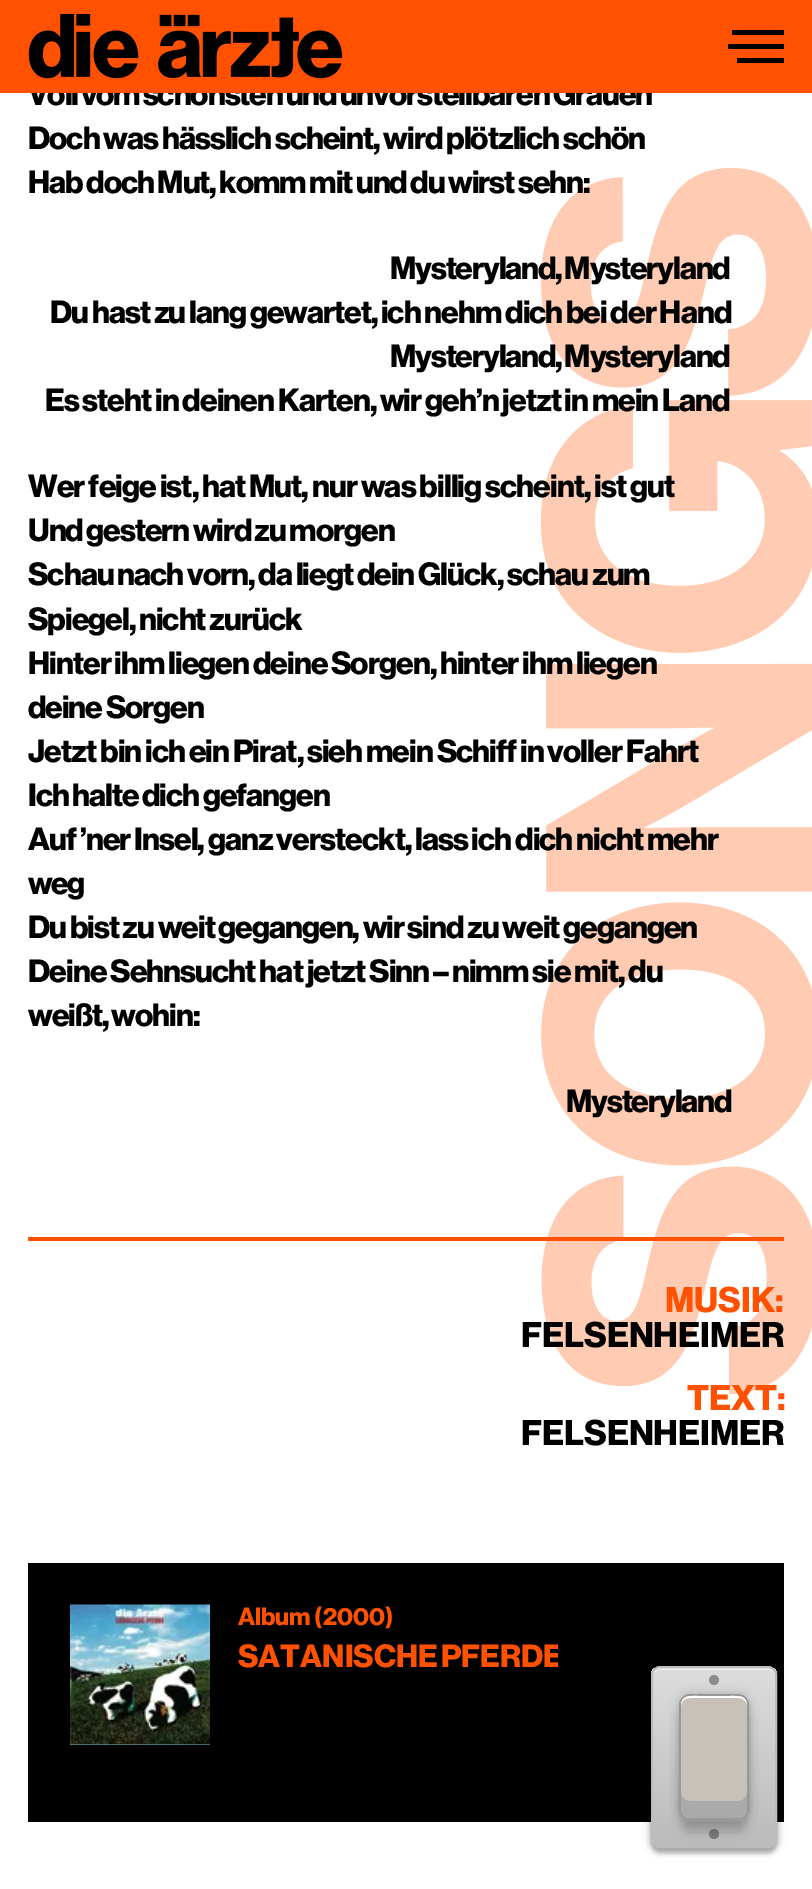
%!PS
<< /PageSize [812 1889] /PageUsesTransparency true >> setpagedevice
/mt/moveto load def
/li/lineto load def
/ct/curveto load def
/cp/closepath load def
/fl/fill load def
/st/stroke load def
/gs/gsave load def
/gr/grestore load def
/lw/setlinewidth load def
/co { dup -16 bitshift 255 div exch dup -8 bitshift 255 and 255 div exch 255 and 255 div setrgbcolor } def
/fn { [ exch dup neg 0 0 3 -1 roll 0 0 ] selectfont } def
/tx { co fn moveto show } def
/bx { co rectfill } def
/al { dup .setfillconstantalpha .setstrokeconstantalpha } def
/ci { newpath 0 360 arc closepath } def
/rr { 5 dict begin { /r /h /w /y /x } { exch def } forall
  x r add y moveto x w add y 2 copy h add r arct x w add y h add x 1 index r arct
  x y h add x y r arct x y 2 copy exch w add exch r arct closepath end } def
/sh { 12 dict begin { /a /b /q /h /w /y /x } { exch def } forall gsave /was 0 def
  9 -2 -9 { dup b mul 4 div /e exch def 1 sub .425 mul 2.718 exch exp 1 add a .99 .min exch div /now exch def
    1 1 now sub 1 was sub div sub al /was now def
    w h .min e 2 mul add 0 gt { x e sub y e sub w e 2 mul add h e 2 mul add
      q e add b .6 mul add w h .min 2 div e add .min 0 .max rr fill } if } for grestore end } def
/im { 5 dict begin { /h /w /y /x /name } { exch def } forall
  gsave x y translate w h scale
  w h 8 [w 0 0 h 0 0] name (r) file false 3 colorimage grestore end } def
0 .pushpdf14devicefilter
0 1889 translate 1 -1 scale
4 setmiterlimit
0 0 812 1889 16#FFFFFF bx
(media/3.raw) 541 168 271 1227 im
28 1237 756 4 16#FF5100 bx
28 1563 756 259 16#000000 bx
70 1744 140 1 16#7ABDD7 bx
(media/2.raw) 70 1604 140 141 im
16#000000 co
651 1671 126 182 9 2.5 .3 sh
649 1664 130 186 11 4.5 .15 sh
gs
651 1666 126 182 9 rr clip newpath
gs 651 1668 mt 777 1668 li 777 1846 li 651 1846 li cp clip newpath
<< /ShadingType 2 /ColorSpace /DeviceRGB /Coords [714 1668 714 1846] /Extend [true true] /Function << /FunctionType 2 /Domain [0 1] /C0 [.867 .867 .867] /C1 [.733 .733 .733] /N 1 >> >> shfill gr
gr
0.5 al
16#FFFFFF co
660 1670 mt 768 1670 li 772 1670 775 1673 775 1676 ct 775 1664 757 1668 750 1668 ct 678 1668 li 671 1668 653 1664 653 1676 ct 653 1673 656 1670 660 1670 ct cp fl
1 al
16#BBBBBB co
2 lw
652 1667 124 180 8 rr st
16#000000 co
681 1710 66 122 9 5 .2 sh
0.1 al
16#FFFFFF co
681 1812 mt 681 1823 689 1822 698 1822 ct 730 1822 li 739 1822 747 1823 747 1812 ct 746 1815 743 1818 738 1818 ct 690 1818 li 685 1818 682 1815 681 1812 ct cp fl
1 al
16#000000 co
679 1694 70 126 11 4.5 .2 sh
16#999999 co
680 1695 68 124 10 rr st
16#C7C1B9 co
681 1696 66 122 9 rr fl
16#AAAAAA co
681 1792 mt 681 1809 li 681 1814 685 1818 690 1818 ct 738 1818 li 743 1818 747 1814 747 1809 ct 747 1792 li 747 1797 743 1801 738 1801 ct 690 1801 li 685 1801 681 1797 681 1792 ct cp fl
16#FFFFFF co
690 1698 mt 738 1698 li 743 1698 747 1701 747 1706 ct 747 1695 738 1696 730 1696 ct 698 1696 li 690 1696 681 1695 681 1706 ct 681 1701 685 1698 690 1698 ct cp fl
0.35 al
16#000000 co
714 1680 5 ci fl
714 1834 5 ci fl
/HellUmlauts-Bold 31.5 fn
1 al
28 105 mt -1 0 32 -1.05 0 (Voll vom schönsten und unvorstellbaren Grauen) awidthshow
0 0 812 93 16#FF5100 bx
737 58 47 5 16#000000 bx
732 30 52 5 16#000000 bx
728 44 56 5 16#000000 bx
(media/1.raw) 28 14 315 65 im
28 149 mt -1 0 (Doch was hässlich scheint, wird plötzlich schön) ashow
28 193 mt -.25 0 32 -1.05 0 (Hab doch Mut, komm mit und du wirst sehn:) awidthshow
390 279 mt -1 0 32 -1.1 0 (Mysteryland, Mysteryland) awidthshow
50 323 mt -.1 0 32 -1 0 (Du hast zu lang gewartet, ich nehm dich bei der Hand) awidthshow
390 367 mt -1 0 32 -1.1 0 (Mysteryland, Mysteryland) awidthshow
45 411 mt -.25 0 32 -.95 0 (Es steht in deinen Karten, wir geh’n jetzt in mein Land) awidthshow
28 497 mt -.25 0 32 -.88 0 (Wer feige ist, hat Mut, nur was billig scheint, ist gut) awidthshow
28 541 mt -.5 0 32 -1.05 0 (Und gestern wird zu morgen) awidthshow
28 585 mt -1 0 (Schau nach vorn, da liegt dein Glück, schau zum) ashow
28 630 mt -1 0 (Spiegel, nicht zurück) ashow
28 674 mt -.25 0 32 -.95 0 (Hinter ihm liegen deine Sorgen, hinter ihm liegen) awidthshow
28 718 mt -1.1 0 (deine Sorgen) ashow
28 762 mt -.4 0 32 -.88 0 (Jetzt bin ich ein Pirat, sieh mein Schiff in voller Fahrt) awidthshow
28 806 mt -.5 0 32 -1 0 (Ich halte dich gefangen) awidthshow
28 850 mt -.25 0 32 -.93 0 (Auf ’ner Insel, ganz versteckt, lass ich dich nicht mehr) awidthshow
28 894 mt -1.5 0 (weg) ashow
28 938 mt -.25 0 32 -1 0 (Du bist zu weit gegangen, wir sind zu weit gegangen) awidthshow
28 982 mt -.95 0 (Deine Sehnsucht hat jetzt Sinn – nimm sie mit, du) ashow
28 1026 mt -1 0 32 -1 0 (weißt, wohin:) awidthshow
566 1112 mt -1.1 0 (Mysteryland) ashow
(MUSIK:) 665 1312 /HellUmlauts-Bold 35 16#FF5100 tx
(FELSENHEIMER) 521 1347 /HellUmlauts-Bold 35 16#000000 tx
(TEXT:) 687 1410 /HellUmlauts-Bold 35 16#FF5100 tx
(FELSENHEIMER) 521 1445 /HellUmlauts-Bold 35 16#000000 tx
(Album \(2000\)) 238 1625 /HellUmlauts-Bold 24.5 16#FF5100 tx
gs
238 1642 320 31 rectclip
/HellUmlauts-Bold 31.5 fn
238 1667 mt -2 0 32 (SATANISCHE PFERDE) widthshow
gr
.poppdf14devicefilter showpage
